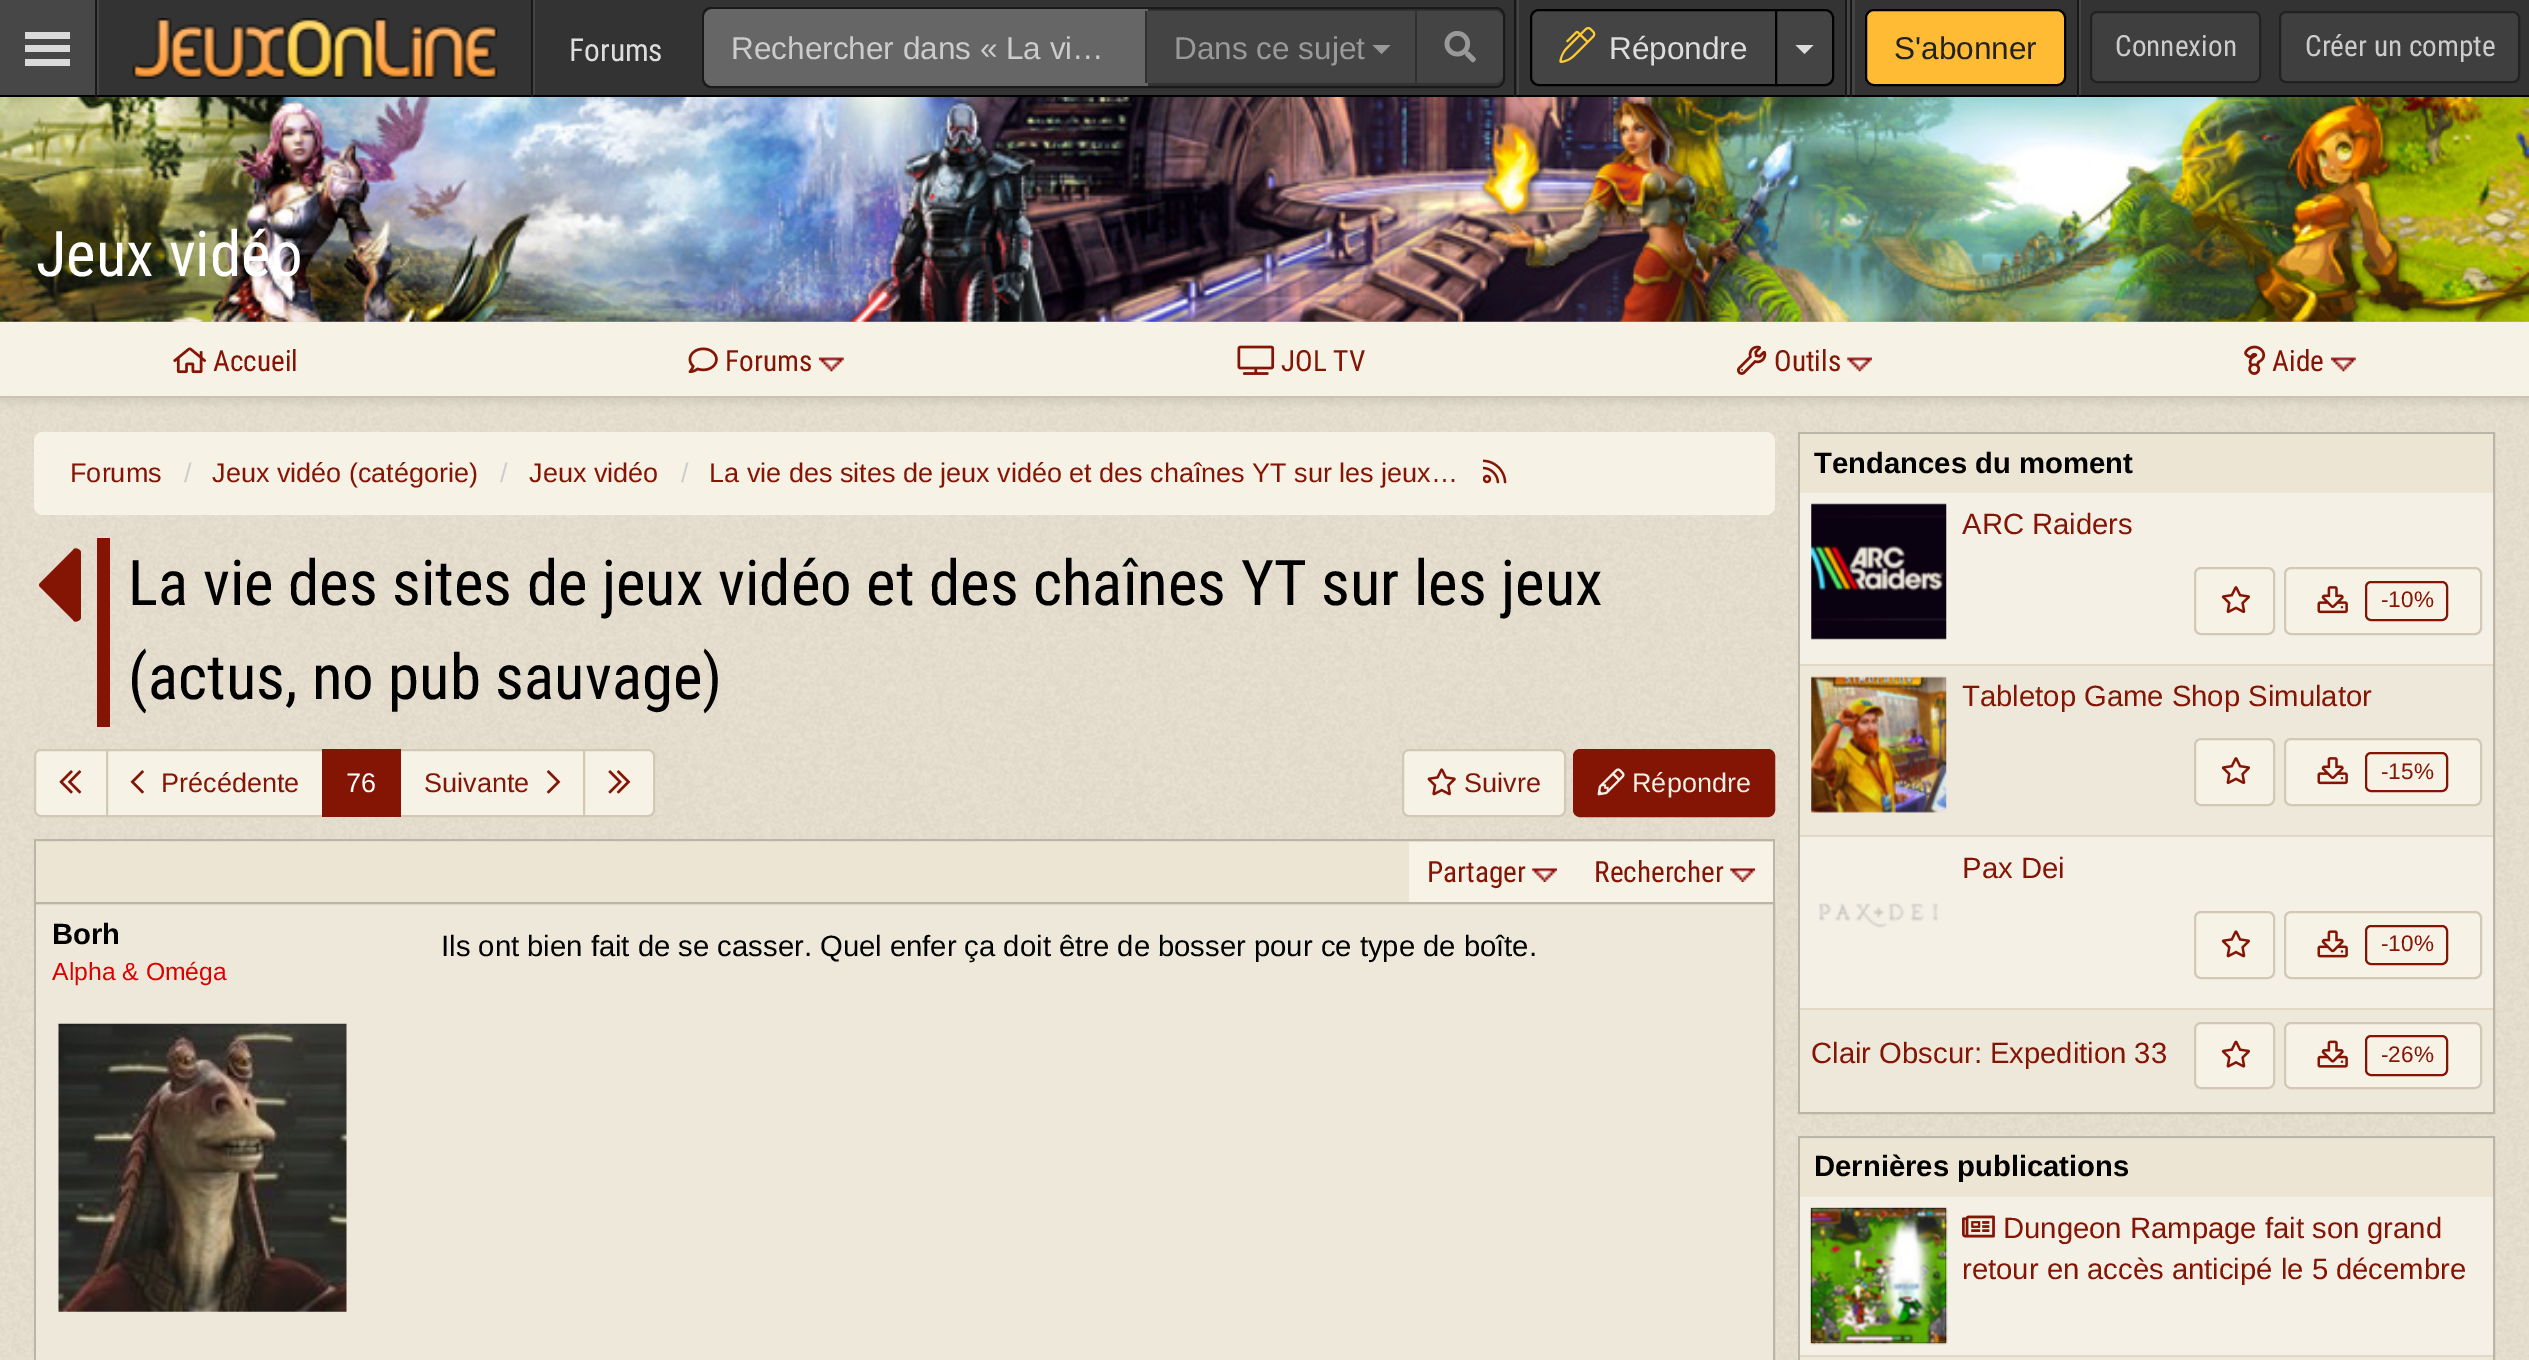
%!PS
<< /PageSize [2529 1360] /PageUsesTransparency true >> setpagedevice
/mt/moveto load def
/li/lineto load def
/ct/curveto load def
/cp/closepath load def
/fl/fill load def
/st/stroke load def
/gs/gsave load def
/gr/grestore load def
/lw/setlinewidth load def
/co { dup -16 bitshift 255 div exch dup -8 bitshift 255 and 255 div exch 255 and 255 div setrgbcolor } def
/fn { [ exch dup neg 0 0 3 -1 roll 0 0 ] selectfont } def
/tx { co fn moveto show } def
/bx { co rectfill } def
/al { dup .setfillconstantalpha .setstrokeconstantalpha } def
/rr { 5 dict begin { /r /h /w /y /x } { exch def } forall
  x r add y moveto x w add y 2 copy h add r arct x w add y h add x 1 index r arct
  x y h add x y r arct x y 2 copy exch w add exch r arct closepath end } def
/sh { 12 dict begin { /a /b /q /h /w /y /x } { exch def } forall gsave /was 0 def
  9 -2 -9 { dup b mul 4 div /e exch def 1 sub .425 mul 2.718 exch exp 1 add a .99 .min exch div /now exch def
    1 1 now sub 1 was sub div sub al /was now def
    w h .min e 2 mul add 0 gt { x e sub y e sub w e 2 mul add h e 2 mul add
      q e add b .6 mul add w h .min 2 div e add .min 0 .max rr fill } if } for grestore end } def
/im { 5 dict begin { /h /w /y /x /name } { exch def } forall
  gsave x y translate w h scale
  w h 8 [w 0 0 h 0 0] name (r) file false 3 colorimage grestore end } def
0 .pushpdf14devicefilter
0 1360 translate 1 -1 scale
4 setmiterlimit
0 0 2529 1360 16#FFFFFF bx
(media/1.raw) 0 321 2529 1 im
99 0 2430 95 16#333333 bx
97 0 2 97 16#444444 bx
533 0 2 97 16#444444 bx
1517 0 2 97 16#444444 bx
1847 0 3 97 16#444444 bx
1852 0 3 97 16#444444 bx
2079 0 2 97 16#444444 bx
0 95 2529 2 16#000000 bx
0 0 95 95 16#474747 bx
25 32 45 7 16#DADADA bx
25 45 45 7 16#DADADA bx
25 59 45 7 16#DADADA bx
95 0 2 97 16#181818 bx
(media/2.raw) 132 18 366 61 im
531 0 2 97 16#181818 bx
16#1A1A1A co
2 lw
703 8 801 79 8 rr st
16#666666 co
713 9 mt 1148 9 li 1148 86 li 713 86 li 708 86 704 82 704 77 ct 704 18 li 704 13 708 9 713 9 ct cp fl
1147 11 268 72 16#444444 bx
1145 11 2 72 16#303030 bx
16#999999 co
1372.5 45 mt 1390.5 45 li 1381.5 54 li cp fl
16#444444 co
1415 11 mt 1494 11 li 1499 11 1503 15 1503 20 ct 1503 74 li 1503 79 1499 83 1494 83 ct 1415 83 li cp fl
1415 11 2 72 16#303030 bx
(media/3.raw) 1444 31 32 32 im
1514 0 2 97 16#181818 bx
16#444444 co
1539 10 mt 1777 10 li 1777 85 li 1539 85 li 1534.5 85 1531 81.5 1531 77 ct 1531 18 li 1531 13.5 1534.5 10 1539 10 ct cp gs fl gr
16#000000 co
st
(media/4.raw) 1559 27 37 36 im
16#444444 co
1776 10 mt 1825 10 li 1829.5 10 1833 13.5 1833 18 ct 1833 77 li 1833 81.5 1829.5 85 1825 85 ct 1776 85 li cp gs fl gr
16#000000 co
st
16#DDDDDD co
1795.5 45 mt 1813.5 45 li 1804.5 54 li cp fl
1845 0 2 97 16#181818 bx
1850 0 2 97 16#181818 bx
16#FFBB33 co
1866 10 199 75 8 rr gs fl gr
16#000000 co
st
2077 0 2 97 16#181818 bx
16#3F3F3F co
2091 12 169 70 6 rr gs fl gr
16#222222 co
st
16#3F3F3F co
2280 12 239 70 6 rr gs fl gr
16#222222 co
st
(media/5.raw) 0 97 2529 225 im
0 398 2529 962 16#E8E1D0 bx
(media/14.raw) 0 398 2529 962 im
16#000000 co
0 324 2529 77 0 4.5 .1 sh
0 396 2529 2 16#C9C3B7 bx
0 322 2529 74 16#F7F2E6 bx
(media/6.raw) 173 347 34 27 im
(media/7.raw) 688 347 30 27 im
(media/8.raw) 819 357 25 15 im
(media/9.raw) 1237 345 38 30 im
(media/10.raw) 1737 345 30 30 im
(media/11.raw) 1847 357 25 15 im
(media/12.raw) 2244 345 22 30 im
(media/13.raw) 2331 357 25 15 im
34 432 1741 83 9 rr fl
(media/15.raw) 1483 459 24 25 im
16#841505 co
81 553 mt 81 617 li 81 619 80 620 78 621 ct 76 622 74 622 73 620 ct 41 588 li 40 587 39 586 39 585 ct 39 584 40 583 41 582 ct 73 550 li 74 548 76 548 78 549 ct 80 550 81 551 81 553 ct cp fl
97 538 13 189 16#841505 bx
16#F7F2E6 co
41 750 mt 107 750 li 107 816 li 41 816 li 37.5 816 35 813.5 35 810 ct 35 756 li 35 752.5 37.5 750 41 750 ct cp gs fl gr
16#D1C8B6 co
st
(media/16.raw) 59 770 23 24 im
16#F7F2E6 co
107 750 mt 323 750 li 323 816 li 107 816 li cp gs fl gr
16#D1C8B6 co
st
(media/17.raw) 130 770 14 24 im
401 751 182 64 16#F7F2E6 bx
16#D1C8B6 co
399 750 185 66 rectstroke
322 749 79 68 16#841505 bx
(media/18.raw) 546 770 15 24 im
16#F7F2E6 co
584 750 mt 648 750 li 651.5 750 654 752.5 654 756 ct 654 810 li 654 813.5 651.5 816 648 816 ct 584 816 li cp gs fl gr
16#D1C8B6 co
st
(media/19.raw) 608 770 23 24 im
16#F7F2E6 co
1403 750 162 66 6 rr gs fl gr
16#D1C8B6 co
st
(media/20.raw) 1427 768 29 28 im
16#841505 co
1574 750 200 66 6 rr gs fl gr
st
(media/21.raw) 1597 768 28 28 im
34 839 1741 2 16#BBB5A7 bx
1773 839 2 63 16#BBB5A7 bx
34 839 2 63 16#BBB5A7 bx
36 842 1373 60 16#EDE5D3 bx
1409 842 364 60 16#F7F2E6 bx
(media/22.raw) 1532 868 25 14 im
(media/22.raw) 1730 868 25 14 im
36 904 1737 1 16#E9E4D4 bx
16#BBB5A7 co
35 903 1739 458 rectstroke
36 905 1737 452 16#EDE8D9 bx
(media/23.raw) 58 1023 289 289 im
36 1357 1737 3 16#EDE8D9 bx
16#BBB5A7 co
1799 433 695 680 rectstroke
1800 434 693 59 16#EDE5D3 bx
1800 666 693 446 16#EDE8D9 bx
1800 493 693 171 16#F4F0E5 bx
(media/24.raw) 1811 503 136 137 im
16#F7F2E6 co
2195 568 79 66 6 rr gs fl gr
16#D1C8B6 co
st
(media/25.raw) 2221 586 29 28 im
16#F7F2E6 co
2285 568 196 66 6 rr gs fl gr
16#D1C8B6 co
st
(media/26.raw) 2317 586 31 28 im
16#841505 co
2366 582 81 38 5 rr st
1800 664 693 2 16#E2D9C5 bx
(media/27.raw) 1811 676 136 137 im
16#F7F2E6 co
2195 739 79 66 6 rr gs fl gr
16#D1C8B6 co
st
(media/25.raw) 2221 757 29 28 im
16#F7F2E6 co
2285 739 196 66 6 rr gs fl gr
16#D1C8B6 co
st
(media/26.raw) 2317 757 31 28 im
16#841505 co
2366 753 81 38 5 rr st
1800 837 693 171 16#F4F0E5 bx
1800 835 693 2 16#E2D9C5 bx
(media/28.raw) 1819 903 119 25 im
16#F7F2E6 co
2195 912 79 66 6 rr gs fl gr
16#D1C8B6 co
st
(media/29.raw) 2221 930 29 28 im
16#F7F2E6 co
2285 912 196 66 6 rr gs fl gr
16#D1C8B6 co
st
(media/30.raw) 2317 930 31 28 im
16#841505 co
2366 926 81 38 5 rr st
1800 1008 693 2 16#E2D9C5 bx
16#F7F2E6 co
2195 1023 79 65 6 rr gs fl gr
16#D1C8B6 co
st
(media/31.raw) 2221 1040 29 28 im
16#F7F2E6 co
2285 1023 196 65 6 rr gs fl gr
16#D1C8B6 co
st
(media/32.raw) 2317 1040 31 28 im
16#841505 co
2366 1036 81 39 5 rr st
1800 1138 693 1 16#F7F0E5 bx
16#BBB5A7 co
1799 1137 695 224 rectstroke
1800 1139 693 58 16#EDE5D3 bx
1800 1357 693 3 16#EDE8D9 bx
1800 1197 693 158 16#F4F0E5 bx
1811 1208 135 135 16#000000 bx
(media/33.raw) 1810 1207 138 138 im
(media/34.raw) 1962 1215 33 23 im
1800 1355 693 2 16#E2D9C5 bx
(Forums) 569 61 /RobotoCondensed-Regular 31.5 16#DDDDDD tx
(Rechercher dans « La vi…) 731 59 /LiberationSans-Regular 31.5 16#CCCCCC tx
(Dans ce sujet) 1174 59 /LiberationSans-Regular 31.5 16#999999 tx
(Répondre) 1609 59 /LiberationSans-Regular 31.5 16#DDDDDD tx
(S'abonner) 1894 59 /LiberationSans-Regular 31.5 16#222222 tx
(Connexion) 2115 56 /RobotoCondensed-Regular 29.25 16#CCCCCC tx
(Créer un compte) 2305 56 /RobotoCondensed-Regular 29.25 16#CCCCCC tx
(Jeux vidéo) 36 276 /RobotoCondensed-Regular 63 16#FFFFFF tx
(Accueil) 213 371 /RobotoCondensed-Regular 29.25 16#841505 tx
(Forums) 725 371 /RobotoCondensed-Regular 29.25 16#841505 tx
(JOL TV) 1281 371 /RobotoCondensed-Regular 29.25 16#841505 tx
(Outils) 1774 371 /RobotoCondensed-Regular 29.25 16#841505 tx
(Aide) 2272 371 /RobotoCondensed-Regular 29.25 16#841505 tx
(Forums) 70 482 /LiberationSans-Regular 27 16#841505 tx
(/) 184 482 /LiberationSans-Regular 27 16#CCCCCC tx
(Jeux vidéo \(catégorie\)) 212 482 /LiberationSans-Regular 27 16#841505 tx
(/) 500 482 /LiberationSans-Regular 27 16#CCCCCC tx
(Jeux vidéo) 529 482 /LiberationSans-Regular 27 16#841505 tx
(/) 681 482 /LiberationSans-Regular 27 16#CCCCCC tx
(La vie des sites de jeux vidéo et des chaînes YT sur les jeux…) 709 482 /LiberationSans-Regular 27 16#841505 tx
(La vie des sites de jeux vidéo et des chaînes YT sur les jeux) 128 605 /RobotoCondensed-Regular 63 16#000000 tx
(\(actus, no pub sauvage\)) 128 699 /RobotoCondensed-Regular 63 16#000000 tx
(Précédente) 161 792 /LiberationSans-Regular 27 16#841505 tx
(76) 346 792 /LiberationSans-Regular 27 16#FFFFFF tx
(Suivante) 424 792 /LiberationSans-Regular 27 16#841505 tx
(Suivre) 1464 792 /LiberationSans-Regular 27 16#841505 tx
(Répondre) 1632 792 /LiberationSans-Regular 27 16#F4F0E5 tx
(Partager) 1427 882 /RobotoCondensed-Regular 29.25 16#841505 tx
(Rechercher) 1594 882 /RobotoCondensed-Regular 29.25 16#841505 tx
(Borh) 52 944 /LiberationSans-Bold 29.25 16#000000 tx
(Alpha & Oméga) 52 980 /LiberationSans-Regular 24.75 16#DD0000 tx
(Ils ont bien fait de se casser. Quel enfer ça doit être de bosser pour ce type de boîte.) 441 956 /LiberationSans-Regular 29.25 16#000000 tx
(Tendances du moment) 1814 473 /LiberationSans-Bold 29.25 16#000000 tx
(ARC Raiders) 1962 534 /LiberationSans-Regular 29.25 16#841505 tx
(-10%) 2381 607 /LiberationSans-Regular 22.5 16#841505 tx
(Tabletop Game Shop Simulator) 1962 706 /LiberationSans-Regular 29.25 16#841505 tx
(-15%) 2381 779 /LiberationSans-Regular 22.5 16#841505 tx
(Pax Dei) 1962 878 /LiberationSans-Regular 29.25 16#841505 tx
(-10%) 2381 951 /LiberationSans-Regular 22.5 16#841505 tx
(Clair Obscur: Expedition 33) 1811 1063 /LiberationSans-Regular 29.25 16#841505 tx
(-26%) 2381 1062 /LiberationSans-Regular 22.5 16#841505 tx
(Dernières publications) 1814 1176 /LiberationSans-Bold 29.25 16#000000 tx
(Dungeon Rampage fait son grand) 2003 1238 /LiberationSans-Regular 29.25 16#841505 tx
(retour en accès anticipé le 5 décembre) 1962 1279 /LiberationSans-Regular 29.25 16#841505 tx
.poppdf14devicefilter showpage
